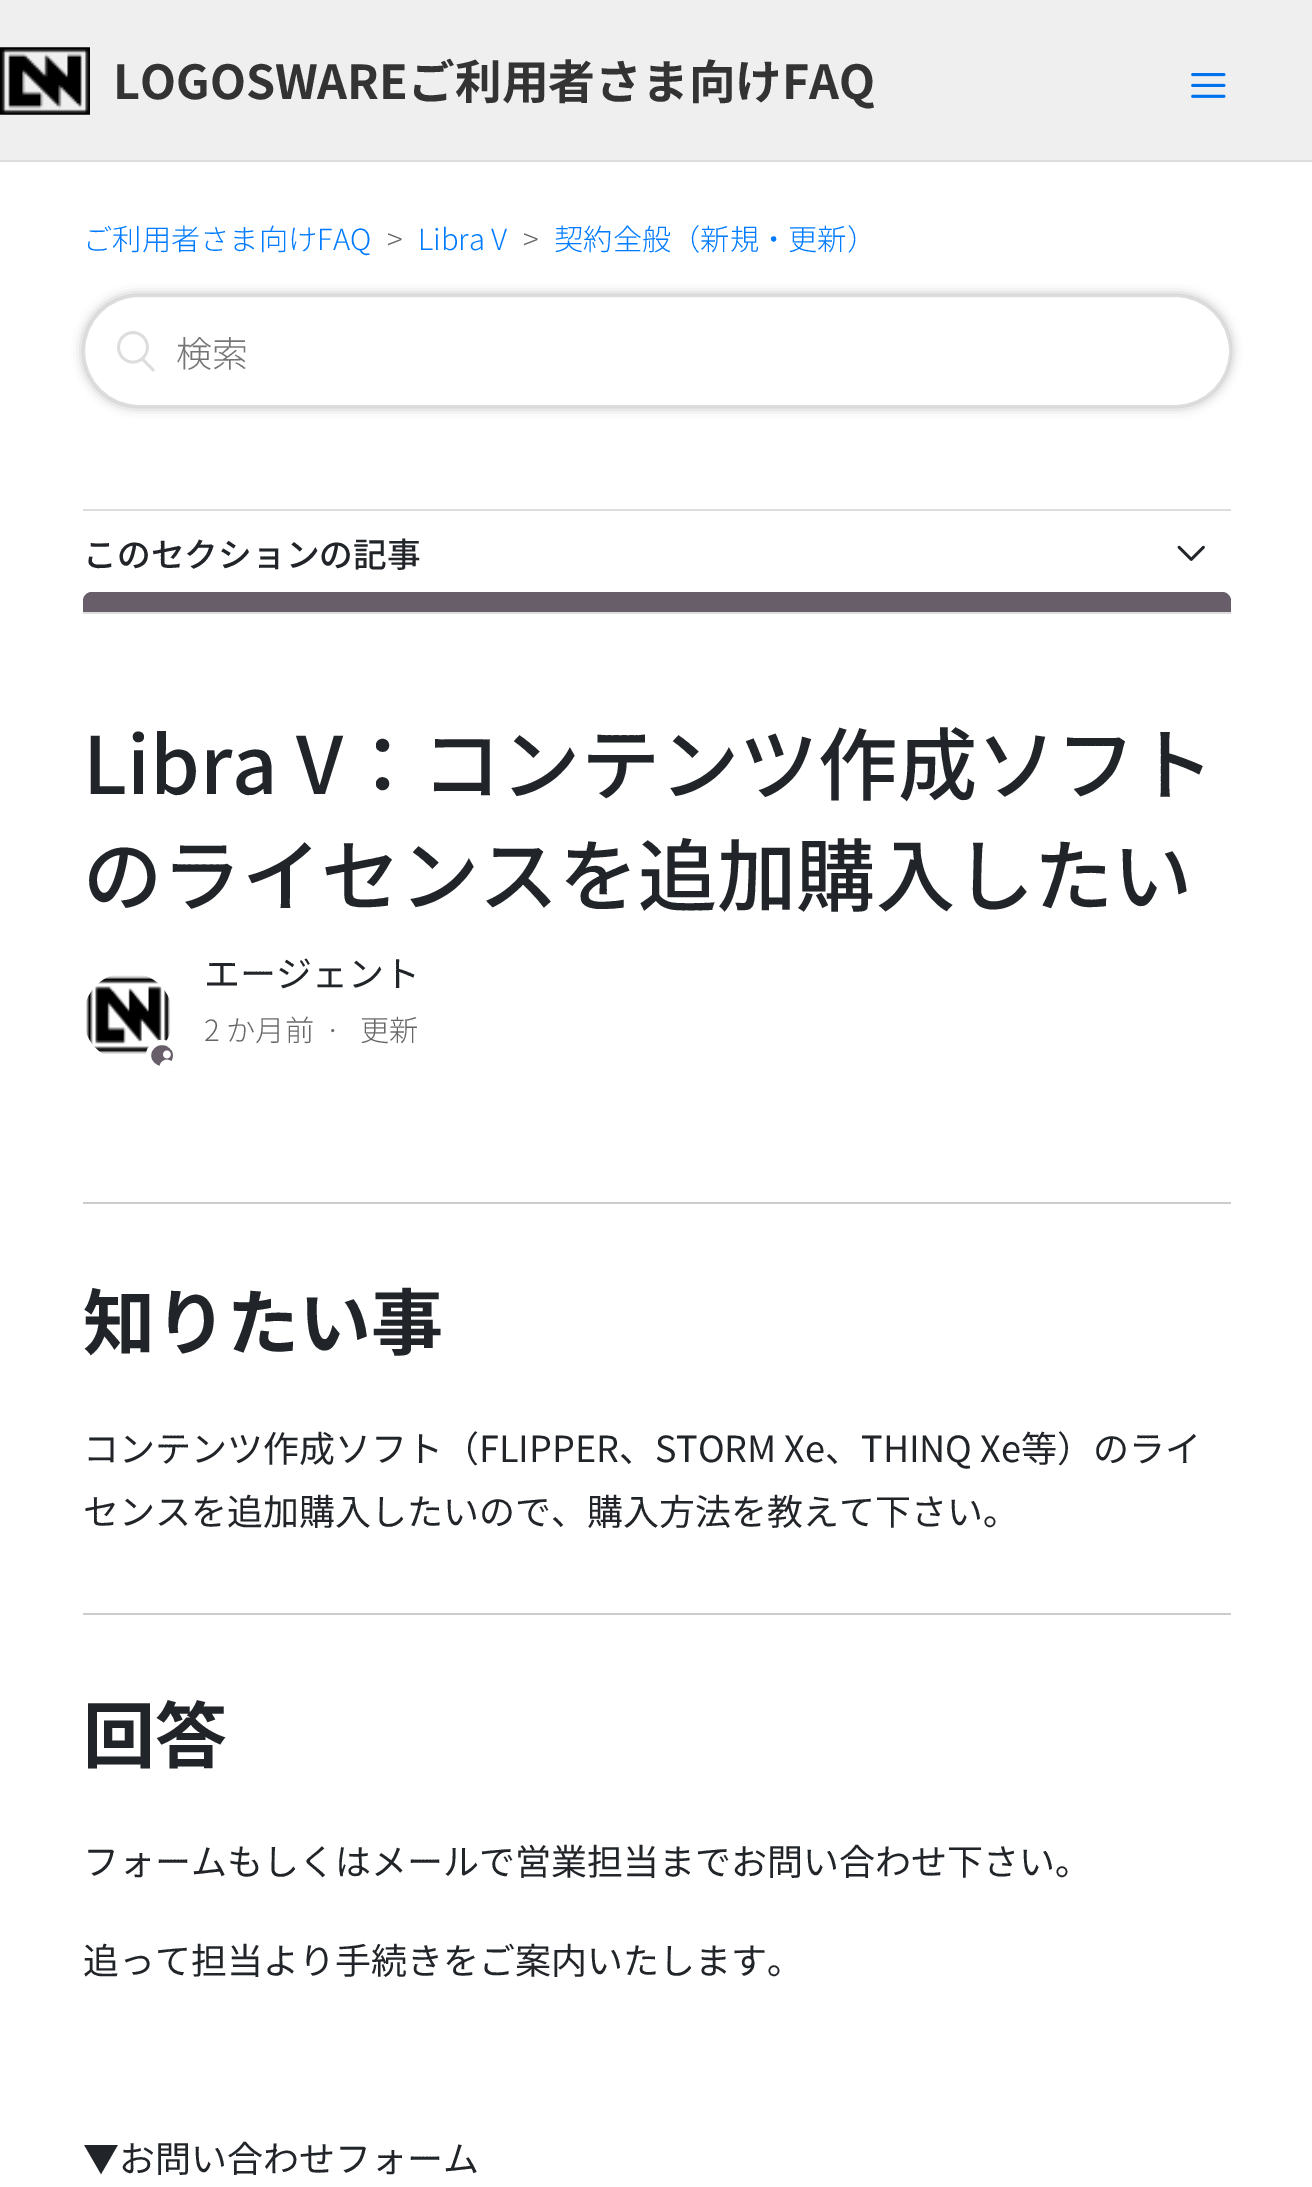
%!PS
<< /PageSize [1312 2187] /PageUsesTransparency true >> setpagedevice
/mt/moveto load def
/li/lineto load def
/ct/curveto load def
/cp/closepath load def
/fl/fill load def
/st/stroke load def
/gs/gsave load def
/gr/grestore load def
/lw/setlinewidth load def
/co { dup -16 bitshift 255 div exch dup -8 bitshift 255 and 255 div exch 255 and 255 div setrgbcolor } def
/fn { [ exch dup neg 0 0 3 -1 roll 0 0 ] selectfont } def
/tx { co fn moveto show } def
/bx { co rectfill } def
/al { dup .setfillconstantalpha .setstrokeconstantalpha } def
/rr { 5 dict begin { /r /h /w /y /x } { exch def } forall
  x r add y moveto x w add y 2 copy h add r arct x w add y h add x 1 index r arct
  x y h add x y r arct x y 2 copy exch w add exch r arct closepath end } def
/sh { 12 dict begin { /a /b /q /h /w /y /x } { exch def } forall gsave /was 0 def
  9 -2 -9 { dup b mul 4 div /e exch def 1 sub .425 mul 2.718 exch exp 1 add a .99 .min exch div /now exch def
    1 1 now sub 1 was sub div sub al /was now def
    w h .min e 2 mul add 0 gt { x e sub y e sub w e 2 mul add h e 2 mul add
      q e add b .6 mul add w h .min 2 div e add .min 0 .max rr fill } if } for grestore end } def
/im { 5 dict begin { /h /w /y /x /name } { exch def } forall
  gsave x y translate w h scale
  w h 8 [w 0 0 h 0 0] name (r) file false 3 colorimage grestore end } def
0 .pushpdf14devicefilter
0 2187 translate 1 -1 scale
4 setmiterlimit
0 0 1312 2187 16#FFFFFF bx
0 0 1312 160 16#EFEFEF bx
(media/1.raw) 0 47 90 68 im
(media/2.raw) 1191 73 35 25 im
0 160 1312 2 16#DDDDDD bx
16#000000 co
83 295 1148 112 56 5.5 .3 sh
16#FFFFFF co
84 296 1146 110 55 rr gs fl gr
16#DDDDDD co
2 lw
st
(media/3.raw) 117 331 38 41 im
83 509 1148 2 16#DDDDDD bx
83 612 1148 2 16#DDDDDD bx
(media/4.raw) 1177 545 28 16 im
16#675E6A co
92 592 mt 1222 592 li 1227 592 1231 596 1231 601 ct 1231 612 li 83 612 li 83 601 li 83 596 87 592 92 592 ct cp fl
(media/5.raw) 86 975 85 79 im
148.5 1042.5 27 26 13 rr gs fl gr
16#FFFFFF co
5 lw
st
(media/6.raw) 159 1050 15 17 im
83 1202 1148 2 16#CCCCCC bx
83 1613 1148 2 16#CCCCCC bx
(LOGOSWAREご利用者さま向けFAQ) 113 99 /NotoSansJP-Bold 46.75 16#333333 tx
(ご利用者さま向けFAQ) 83 250 /NotoSansJP-Light 29.25 16#007BFF tx
(>) 387 250 /NotoSansJP-Light 29.25 16#666666 tx
(Libra V) 418 250 /NotoSansJP-Light 29.25 16#007BFF tx
(>) 523 250 /NotoSansJP-Light 29.25 16#666666 tx
(契約全般（新規・更新）) 554 250 /NotoSansJP-Light 29.25 16#007BFF tx
(検索) 176 367 /NotoSansJP-Light 36 16#757575 tx
(このセクションの記事) 83 567 /NotoSansJP-Medium 33.75 16#212529 tx
(Libra V：コンテンツ作成ソフト) 83 794 /NotoSansJP-Medium 79.25 16#212529 tx
(のライセンスを追加購入したい) 83 905 /NotoSansJP-Medium 79.25 16#212529 tx
(エージェント) 204 987 /NotoSansJP-Regular 36 16#212529 tx
(2 か月前) 204 1041 /NotoSansJP-Light 29.25 16#666666 tx
(·) 325 1041 /NotoSansJP-Light 29.25 16#666666 tx
(更新) 360 1041 /NotoSansJP-Light 29.25 16#666666 tx
(知りたい事) 83 1349 /NotoSansJP-Bold 72 16#212529 tx
(コンテンツ作成ソフト（FLIPPER、STORM Xe、THINQ Xe等）のライ) 83 1462 /NotoSansJP-Regular 36 16#212529 tx
(センスを追加購入したいので、購入方法を教えて下さい。) 83 1525 /NotoSansJP-Regular 36 16#212529 tx
(回答) 83 1762 /NotoSansJP-Bold 72 16#212529 tx
(フォームもしくはメールで営業担当までお問い合わせ下さい。) 83 1875 /NotoSansJP-Regular 36 16#212529 tx
(追って担当より手続きをご案内いたします。) 83 1974 /NotoSansJP-Regular 36 16#212529 tx
(▼お問い合わせフォーム) 83 2172 /NotoSansJP-Regular 36 16#212529 tx
.poppdf14devicefilter showpage
